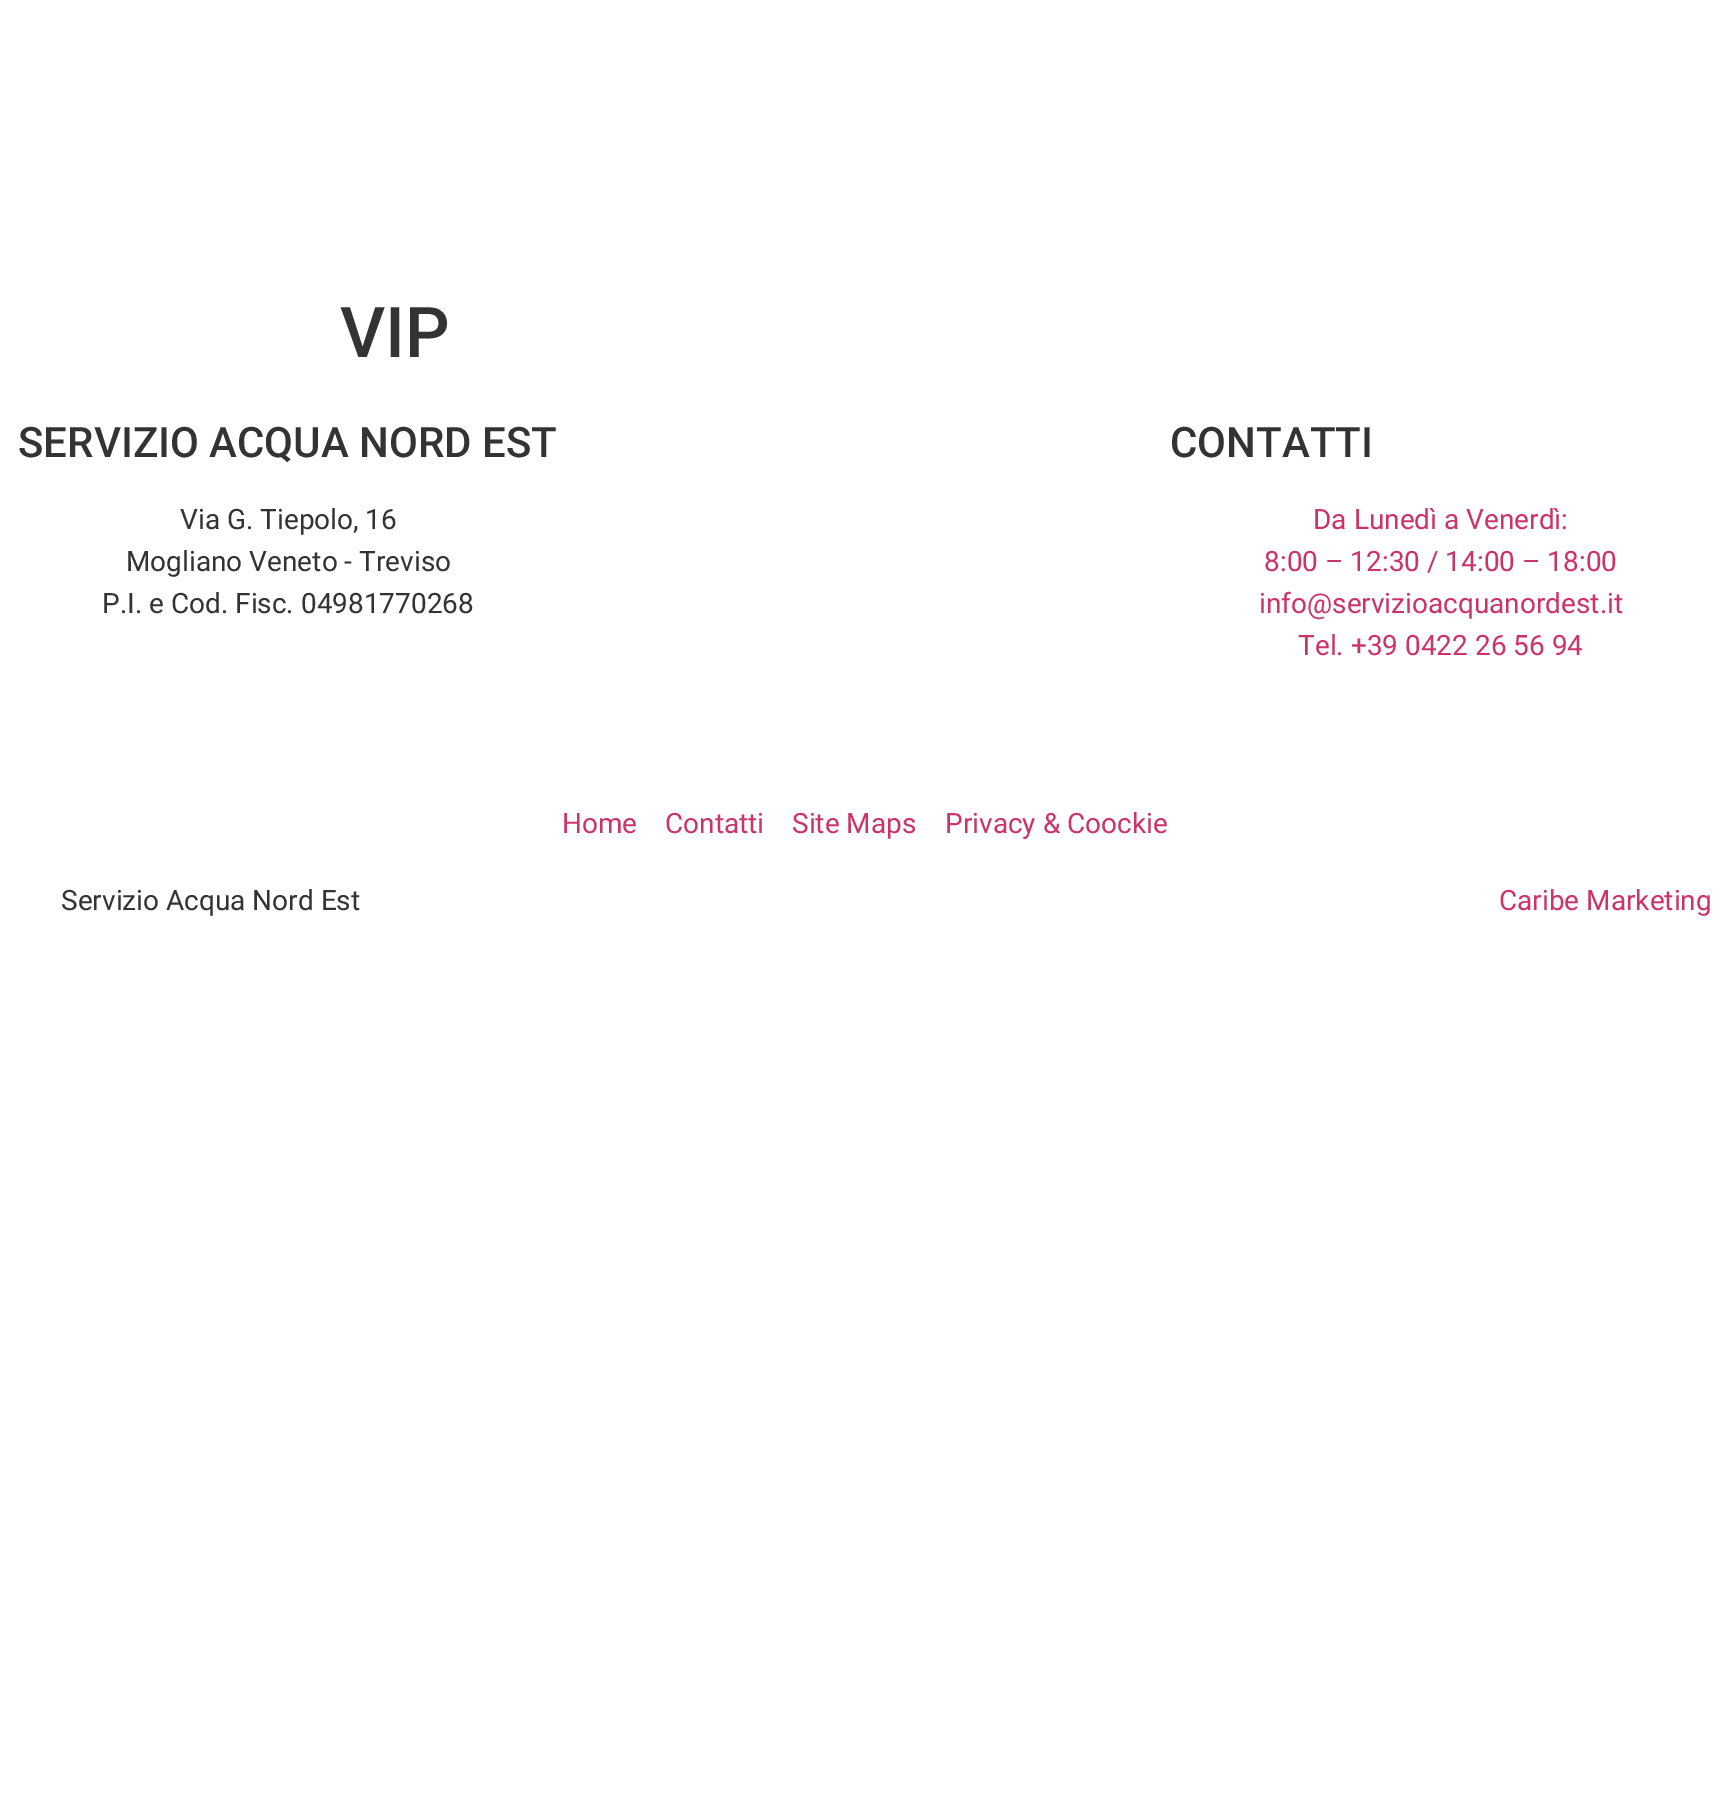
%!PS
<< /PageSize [1729 1817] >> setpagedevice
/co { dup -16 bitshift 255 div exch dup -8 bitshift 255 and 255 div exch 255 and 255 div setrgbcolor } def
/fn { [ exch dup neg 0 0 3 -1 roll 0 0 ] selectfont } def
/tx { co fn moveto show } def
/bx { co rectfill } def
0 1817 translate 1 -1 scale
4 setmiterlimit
0 0 1729 1817 16#FFFFFF bx
(VIP) 340 357 /Roboto-Medium 70 16#333333 tx
(SERVIZIO ACQUA NORD EST) 18 457 /Roboto-Medium 42 16#333333 tx
(Via G. Tiepolo, 16) 180 529 /Roboto-Regular 28 16#333333 tx
(Mogliano Veneto - Treviso) 126 571 /Roboto-Regular 28 16#333333 tx
(P.I. e Cod. Fisc. 04981770268) 102 613 /Roboto-Regular 28 16#333333 tx
(CONTATTI) 1170 457 /Roboto-Medium 42 16#333333 tx
(Da Lunedì a Venerdì:) 1313 529 /Roboto-Regular 28 16#CC3366 tx
(8:00 – 12:30 / 14:00 – 18:00) 1264 571 /Roboto-Regular 28 16#CC3366 tx
(info@servizioacquanordest.it) 1259 613 /Roboto-Regular 28 16#CC3366 tx
(Tel. +39 0422 26 56 94) 1298 655 /Roboto-Regular 28 16#CC3366 tx
(Home) 562 833 /Roboto-Regular 28 16#CC3366 tx
(Contatti) 665 833 /Roboto-Regular 28 16#CC3366 tx
(Site Maps) 792 833 /Roboto-Regular 28 16#CC3366 tx
(Privacy & Coockie) 945 833 /Roboto-Regular 28 16#CC3366 tx
(Servizio Acqua Nord Est) 61 910 /Roboto-Regular 28 16#333333 tx
(Caribe Marketing) 1499 910 /Roboto-Regular 28 16#CC3366 tx
showpage
